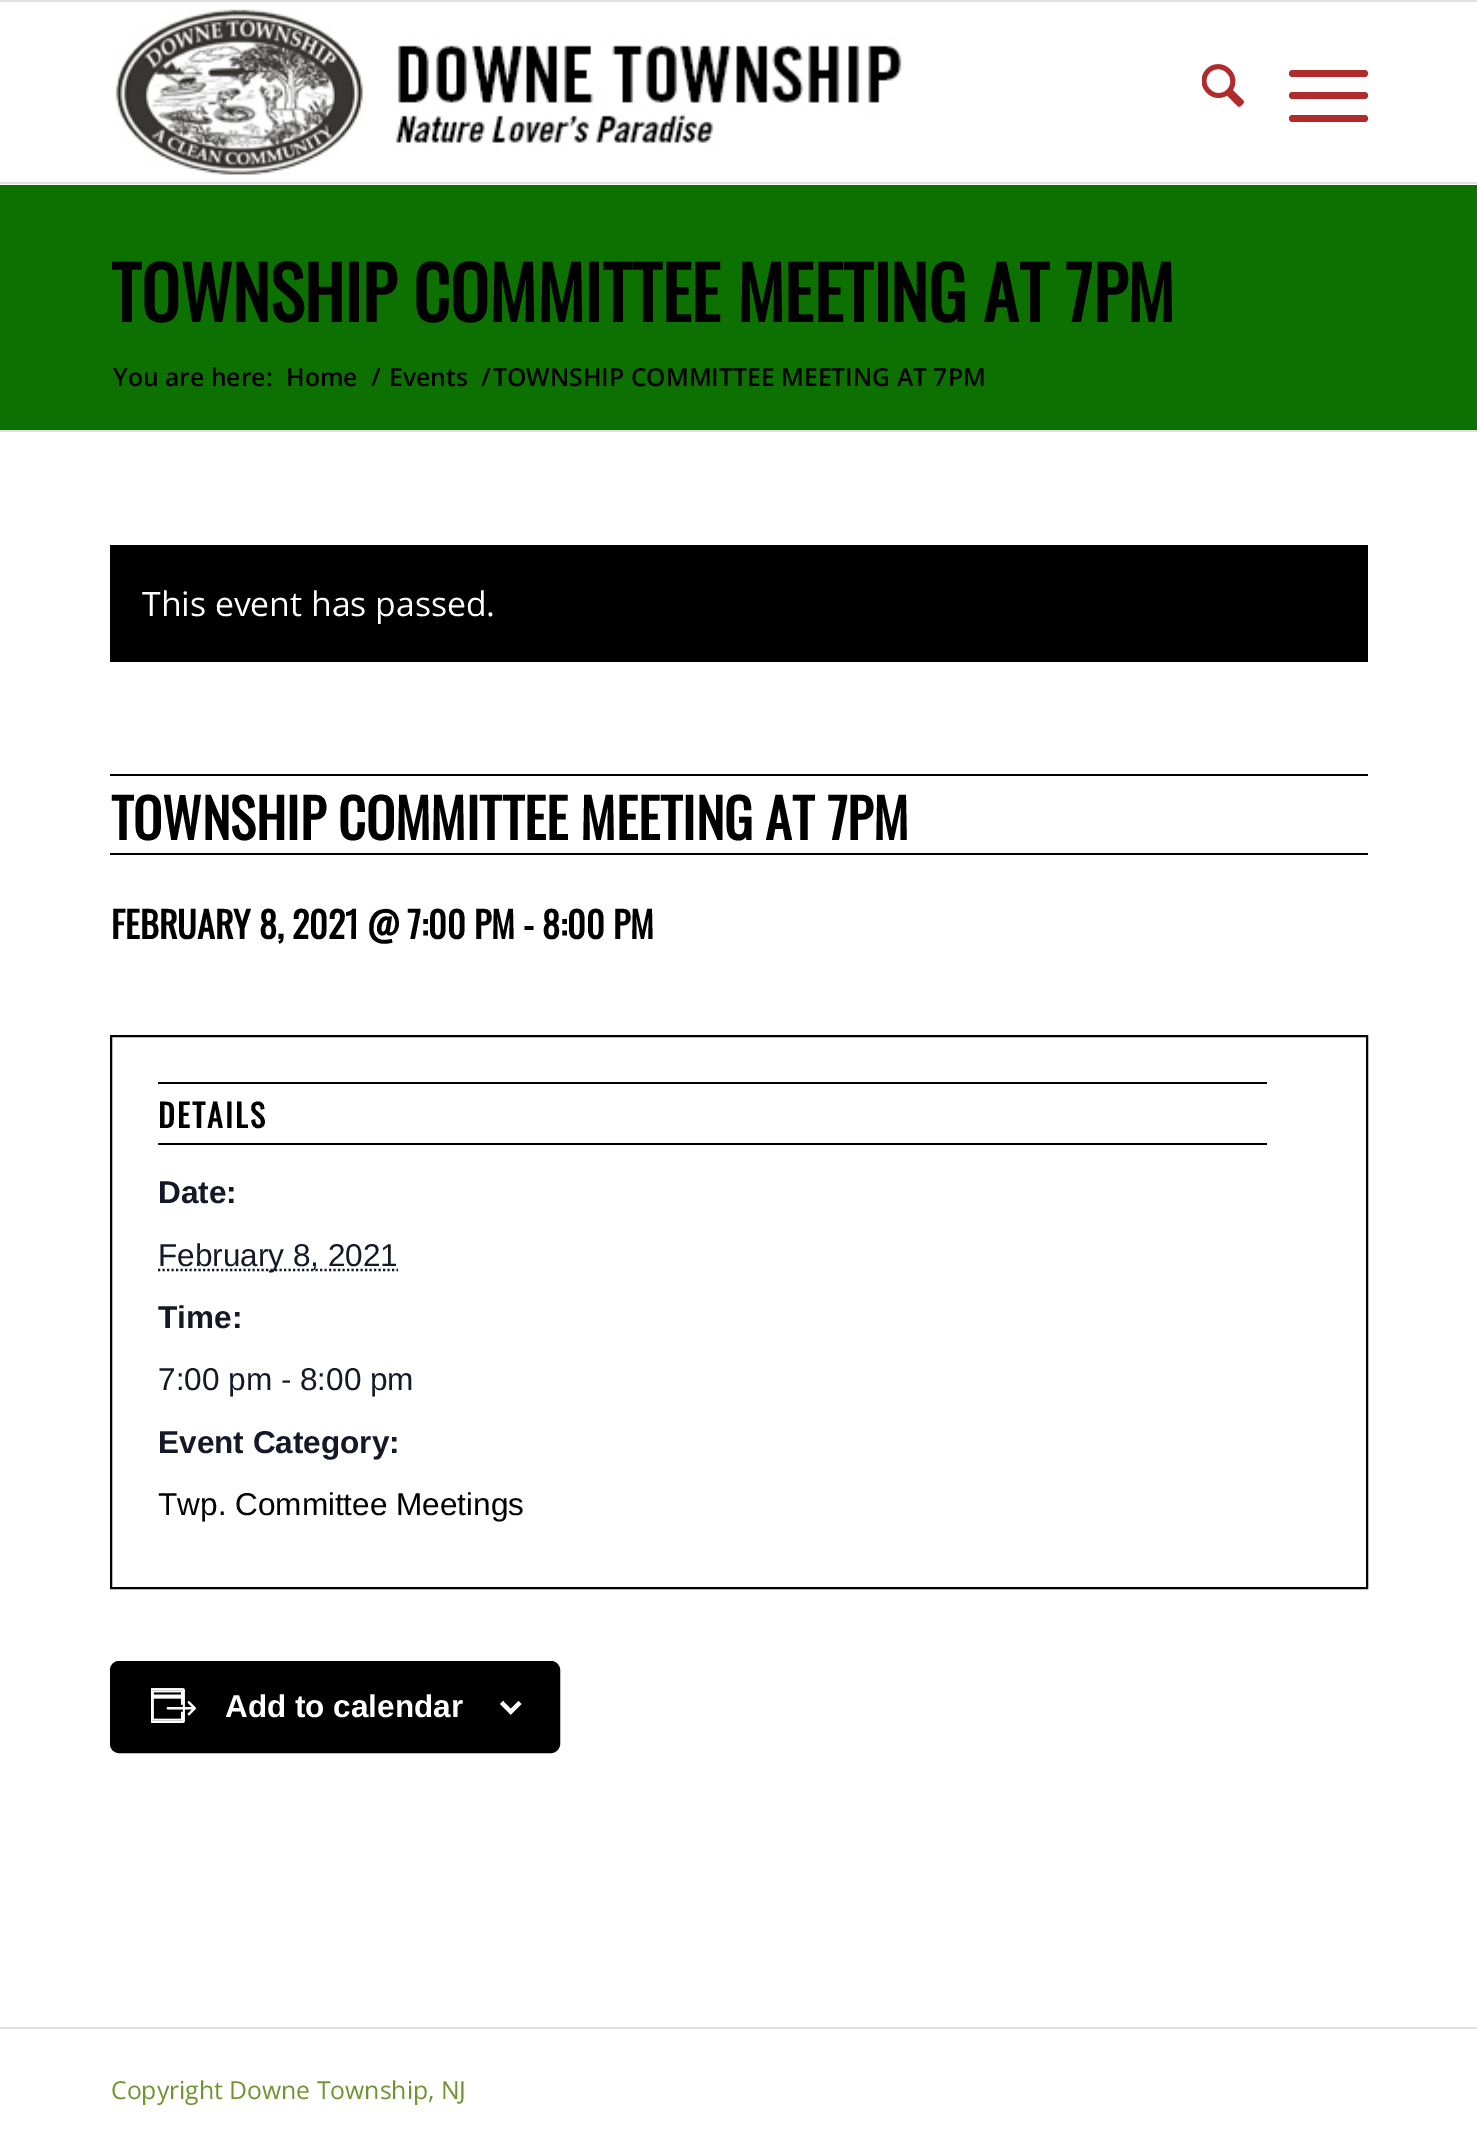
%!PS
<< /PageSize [1477 2144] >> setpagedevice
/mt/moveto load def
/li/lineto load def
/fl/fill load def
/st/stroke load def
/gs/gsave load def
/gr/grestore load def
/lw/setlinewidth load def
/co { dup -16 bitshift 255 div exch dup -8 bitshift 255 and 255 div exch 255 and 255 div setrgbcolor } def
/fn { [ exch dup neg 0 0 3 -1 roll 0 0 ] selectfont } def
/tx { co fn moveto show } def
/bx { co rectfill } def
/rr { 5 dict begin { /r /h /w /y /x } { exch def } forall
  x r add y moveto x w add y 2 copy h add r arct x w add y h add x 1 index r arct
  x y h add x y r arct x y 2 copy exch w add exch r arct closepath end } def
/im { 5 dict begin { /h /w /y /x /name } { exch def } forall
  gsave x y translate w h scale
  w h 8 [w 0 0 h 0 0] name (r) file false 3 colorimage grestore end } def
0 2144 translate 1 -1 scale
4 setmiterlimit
0 0 1477 2144 16#FFFFFF bx
0 0 1477 2 16#E1E1E1 bx
0 182 1477 2 16#E1E1E1 bx
(media/1.raw) 115 9 787 166 im
(media/2.raw) 1202 64 42 43 im
16#B02B2B co
1289 92 79 7 3.5 rr fl
1289 70 79 7 3.5 rr fl
1289 115 79 7 3.5 rr fl
0 185 1477 245 16#0D7102 bx
0 430 1477 2 16#E1E1E1 bx
110 545 1258 117 16#000000 bx
110 774 1258 2 16#000000 bx
110 853 1258 2 16#000000 bx
2 lw
111 1036 1256 552 rectstroke
158 1082 1109 2 16#000000 bx
158 1143 1109 2 16#000000 bx
16#141827 co
2.2 lw
[2.25 2.25] 0 setdash
158 1270 mt 398 1270 li st
16#000000 co
111 1662 448 90 8 rr gs fl gr
2 lw
[] 0 setdash
st
(media/3.raw) 151 1688 45 35 im
(media/4.raw) 500 1701 22 14 im
0 2027 1477 2 16#E1E1E1 bx
(TOWNSHIP COMMITTEE MEETING AT 7PM) 111 322 /Oswald-Bold 72 16#000000 tx
(You are here:) 113 386 /OpenSans-SemiBold 24.75 16#000000 tx
(Home) 286 386 /OpenSans-SemiBold 24.75 16#000000 tx
(/) 371 386 /OpenSans-SemiBold 24.75 16#000000 tx
(Events) 389 386 /OpenSans-SemiBold 24.75 16#000000 tx
(/) 481 386 /OpenSans-SemiBold 24.75 16#000000 tx
(TOWNSHIP COMMITTEE MEETING AT 7PM) 493 386 /OpenSans-SemiBold 24.75 16#000000 tx
(This event has passed.) 142 616 /OpenSans-Regular 33.75 16#FFFFFF tx
(TOWNSHIP COMMITTEE MEETING AT 7PM) 111 840 /Oswald-Bold 54 16#000000 tx
(FEBRUARY 8, 2021 @ 7:00 PM - 8:00 PM) 111 939 /Oswald-Bold 36 16#000000 tx
/Oswald-Bold 31.5 fn
158 1128 mt 2.25 0 (DETAILS) ashow
(Date:) 158 1203 /LiberationSans-Bold 31.5 16#141827 tx
(February 8, 2021) 158 1266 /LiberationSans-Regular 31.5 16#141827 tx
(Time:) 158 1328 /LiberationSans-Bold 31.5 16#141827 tx
(7:00 pm - 8:00 pm) 158 1390 /LiberationSans-Regular 31.5 16#141827 tx
(Event Category:) 158 1453 /LiberationSans-Bold 31.5 16#141827 tx
(Twp. Committee Meetings) 158 1515 /LiberationSans-Regular 31.5 16#000000 tx
(Add to calendar) 225 1717 /LiberationSans-Bold 31.5 16#FFFFFF tx
(Copyright Downe Township, NJ) 111 2099 /OpenSans-Regular 24.75 16#719430 tx
showpage
